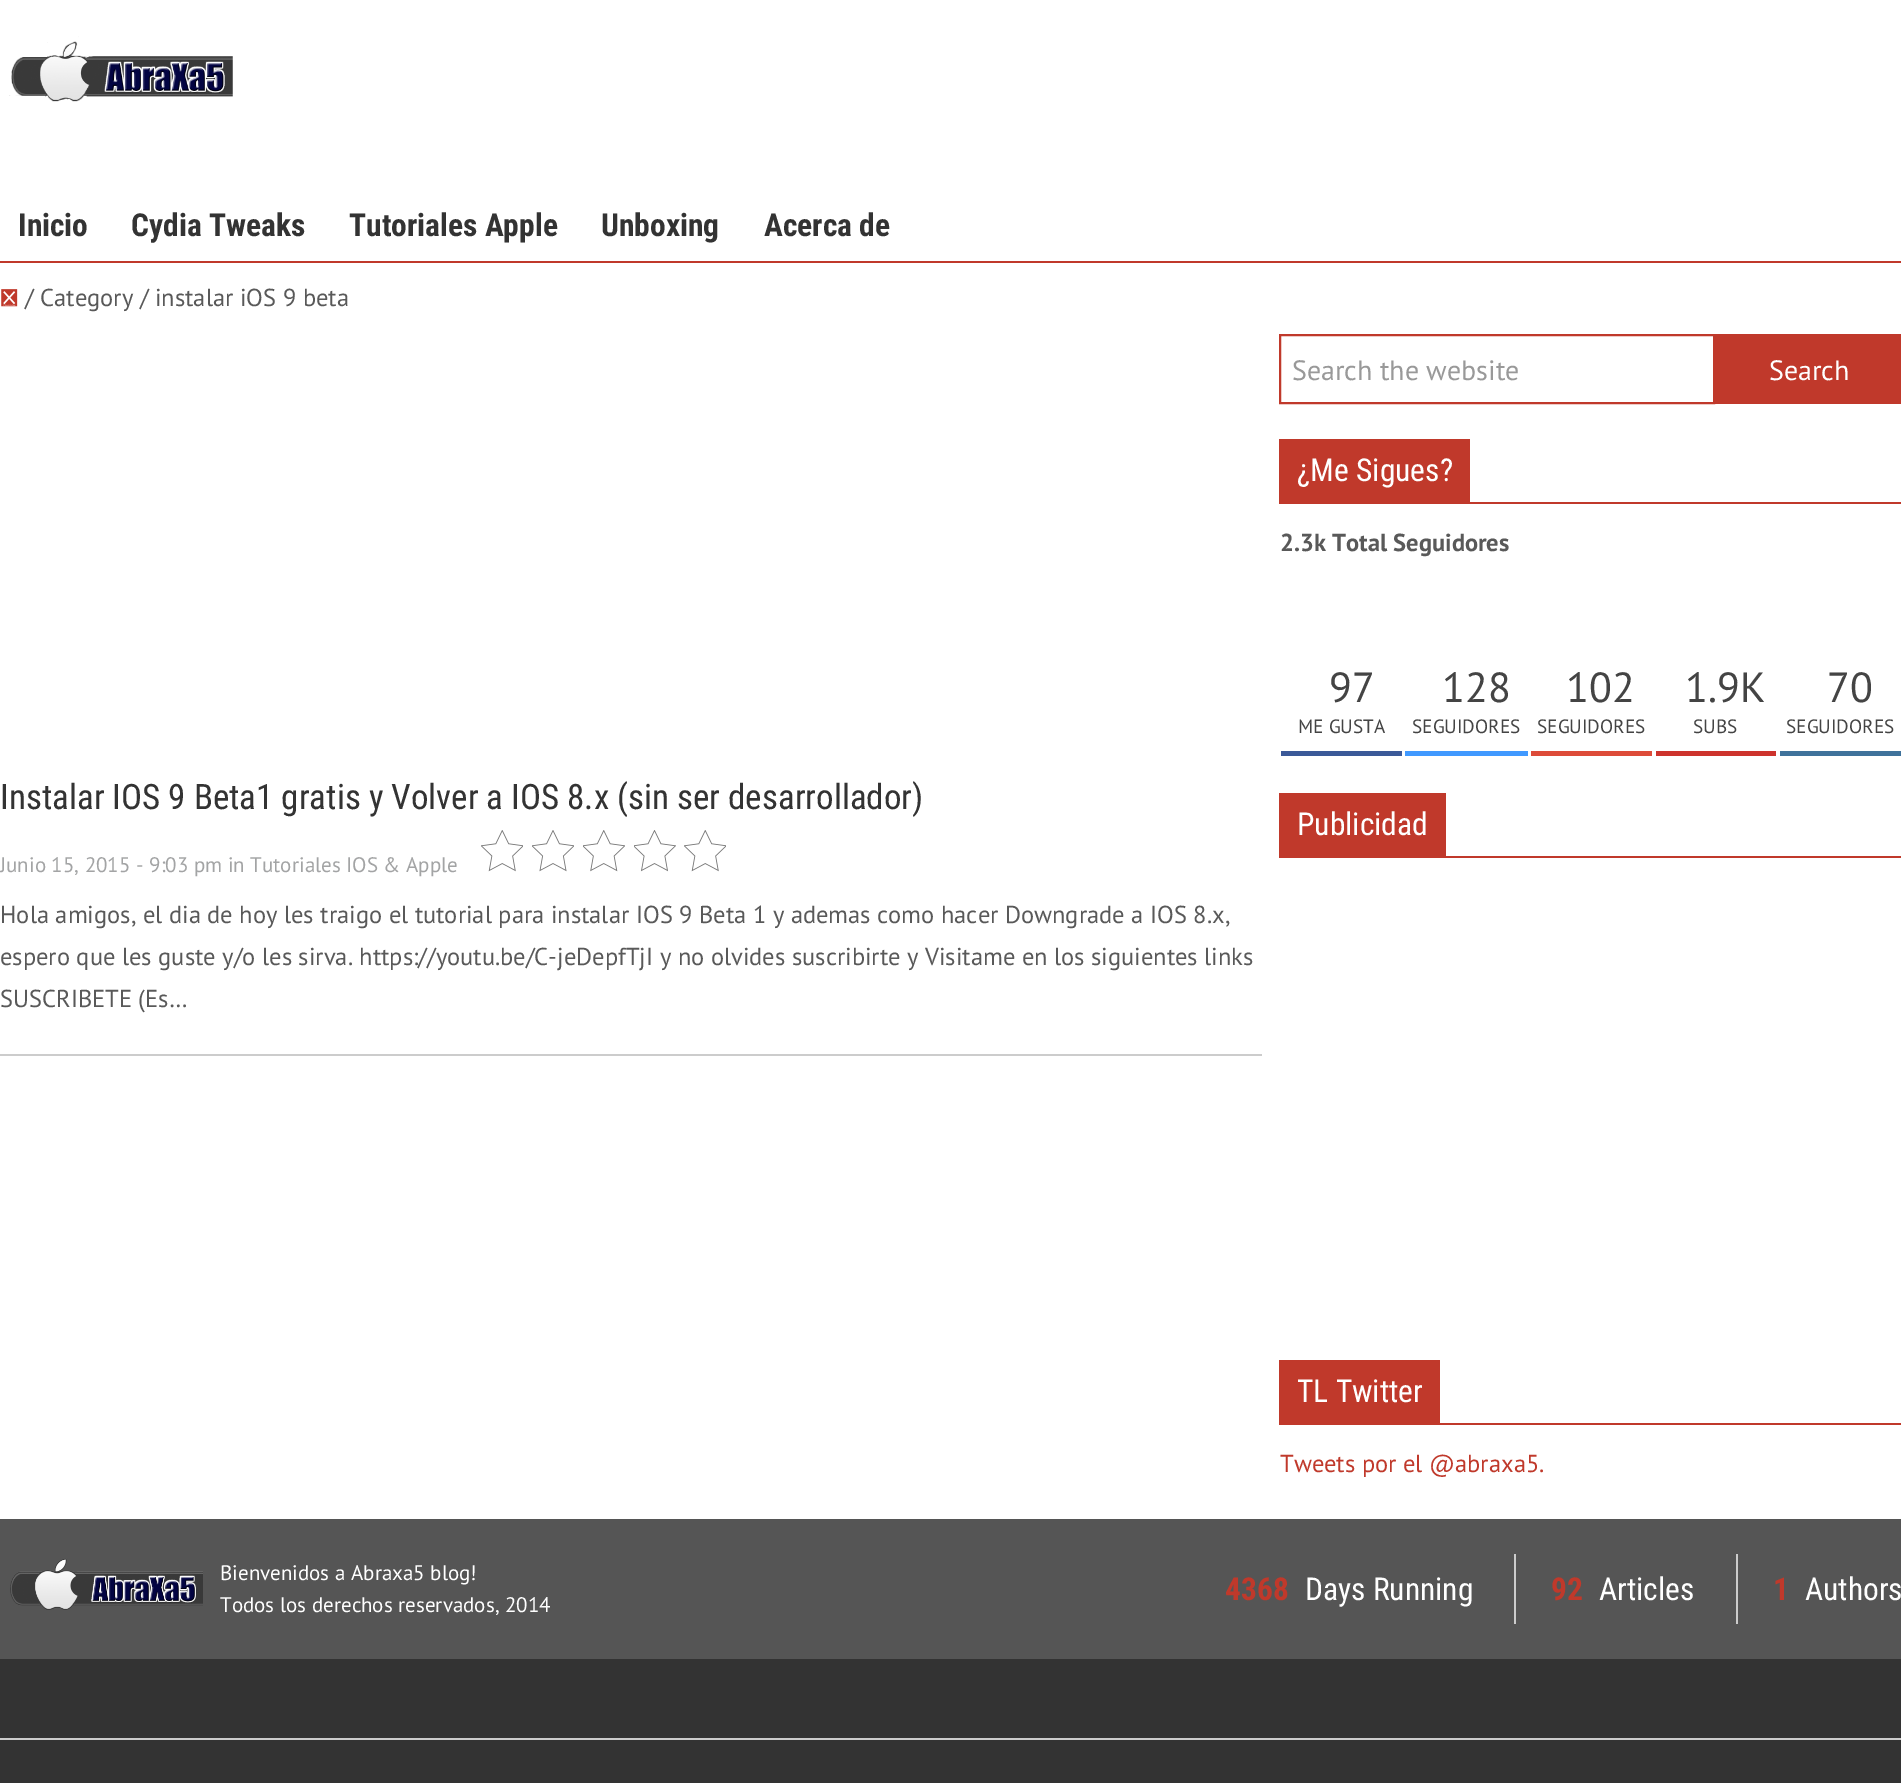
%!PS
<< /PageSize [1901 1783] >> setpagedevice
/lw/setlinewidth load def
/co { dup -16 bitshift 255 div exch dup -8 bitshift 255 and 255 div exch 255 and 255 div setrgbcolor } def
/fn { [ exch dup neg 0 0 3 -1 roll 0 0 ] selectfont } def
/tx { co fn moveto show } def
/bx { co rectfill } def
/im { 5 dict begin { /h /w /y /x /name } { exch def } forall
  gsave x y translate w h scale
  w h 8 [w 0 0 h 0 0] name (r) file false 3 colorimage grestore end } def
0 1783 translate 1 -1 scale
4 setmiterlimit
0 0 1901 1783 16#FFFFFF bx
(media/1.raw) 9 36 224 66 im
0 261 1901 2 16#C0392B bx
(media/2.raw) 1 289 17 18 im
(media/3.raw) 481 830 42 42 im
(media/4.raw) 532 830 42 42 im
(media/5.raw) 583 830 42 42 im
(media/6.raw) 634 830 42 42 im
(media/3.raw) 684 830 42 42 im
0 1054 1262 2 16#CCCCCC bx
16#C0392B co
2 lw
1280 335 434 68 rectstroke
1715 334 186 70 16#C0392B bx
1279 439 191 63 16#C0392B bx
1279 502 622 2 16#C0392B bx
1281 751 121 5 16#3B5998 bx
1405 751 123 5 16#4099FF bx
1531 751 121 5 16#DD4B39 bx
1656 751 120 5 16#CD332D bx
1780 751 121 5 16#3F729B bx
1279 793 167 63 16#C0392B bx
1279 856 622 2 16#C0392B bx
1279 1360 161 63 16#C0392B bx
1279 1423 622 2 16#C0392B bx
0 1659 1901 124 16#333333 bx
0 1519 1901 140 16#555555 bx
(media/7.raw) 10 1558 193 52 im
1514 1554 2 70 16#CCCCCC bx
1736 1554 2 70 16#CCCCCC bx
0 1738 1901 2 16#CCCCCC bx
(Inicio) 18 236 /RobotoCondensed-Bold 31.5 16#333333 tx
(Cydia Tweaks) 131 236 /RobotoCondensed-Bold 31.5 16#333333 tx
(Tutoriales Apple) 349 236 /RobotoCondensed-Bold 31.5 16#333333 tx
(Unboxing) 601 236 /RobotoCondensed-Bold 31.5 16#333333 tx
(Acerca de) 764 236 /RobotoCondensed-Bold 31.5 16#333333 tx
(/ Category / instalar iOS 9 beta) 25 306 /PTSans-Regular 24.5 16#595959 tx
(Instalar IOS 9 Beta1 gratis y Volver a IOS 8.x \(sin ser desarrollador\)) 0 809 /RobotoCondensed-Regular 35 16#333333 tx
(Junio 15, 2015 - 9:03 pm in Tutoriales IOS & Apple) 0 872 /PTSans-Regular 21 16#A3A4A5 tx
(Hola amigos, el dia de hoy les traigo el tutorial para instalar IOS 9 Beta 1 y ademas como hacer Downgrade a IOS 8.x,) 0 923 /PTSans-Regular 24.5 16#595959 tx
(espero que les guste y/o les sirva. https://youtu.be/C-jeDepfTjI y no olvides suscribirte y Visitame en los siguientes links) 0 965 /PTSans-Regular 24.5 16#595959 tx
(SUSCRIBETE \(Es…) 0 1007 /PTSans-Regular 24.5 16#595959 tx
(Search the website) 1292 380 /PTSans-Regular 28 16#999999 tx
(Search) 1769 380 /PTSans-Regular 28 16#FFFFFF tx
(¿Me Sigues?) 1297 481 /RobotoCondensed-Regular 31.5 16#FFFFFF tx
(2.3k Total Seguidores) 1280 551 /PTSans-Bold 24.5 16#595959 tx
(97) 1329 702 /PTSans-Regular 42 16#444444 tx
(ME GUSTA) 1298 733 /PTSans-Regular 19.25 16#444444 tx
(128) 1442 702 /PTSans-Regular 42 16#444444 tx
(SEGUIDORES) 1412 733 /PTSans-Regular 19.25 16#444444 tx
(102) 1566 702 /PTSans-Regular 42 16#444444 tx
(SEGUIDORES) 1537 733 /PTSans-Regular 19.25 16#444444 tx
(1.9K) 1685 702 /PTSans-Regular 42 16#444444 tx
(SUBS) 1693 733 /PTSans-Regular 19.25 16#444444 tx
(70) 1827 702 /PTSans-Regular 42 16#444444 tx
(SEGUIDORES) 1786 733 /PTSans-Regular 19.25 16#444444 tx
(Publicidad) 1297 835 /RobotoCondensed-Regular 31.5 16#FFFFFF tx
(TL Twitter) 1297 1402 /RobotoCondensed-Regular 31.5 16#FFFFFF tx
(Tweets por el @abraxa5.) 1280 1472 /PTSans-Regular 24.5 16#C0392B tx
(Bienvenidos a Abraxa5 blog!) 220 1580 /PTSans-Regular 21 16#FFFFFF tx
(Todos los derechos reservados, 2014) 220 1612 /PTSans-Regular 21 16#FFFFFF tx
(4368) 1225 1600 /RobotoCondensed-Bold 31.5 16#C0392B tx
(Days Running) 1305 1600 /RobotoCondensed-Regular 31.5 16#FFFFFF tx
(92) 1551 1600 /RobotoCondensed-Bold 31.5 16#C0392B tx
(Articles) 1599 1600 /RobotoCondensed-Regular 31.5 16#FFFFFF tx
(1) 1773 1600 /RobotoCondensed-Bold 31.5 16#C0392B tx
(Authors) 1805 1600 /RobotoCondensed-Regular 31.5 16#FFFFFF tx
showpage
